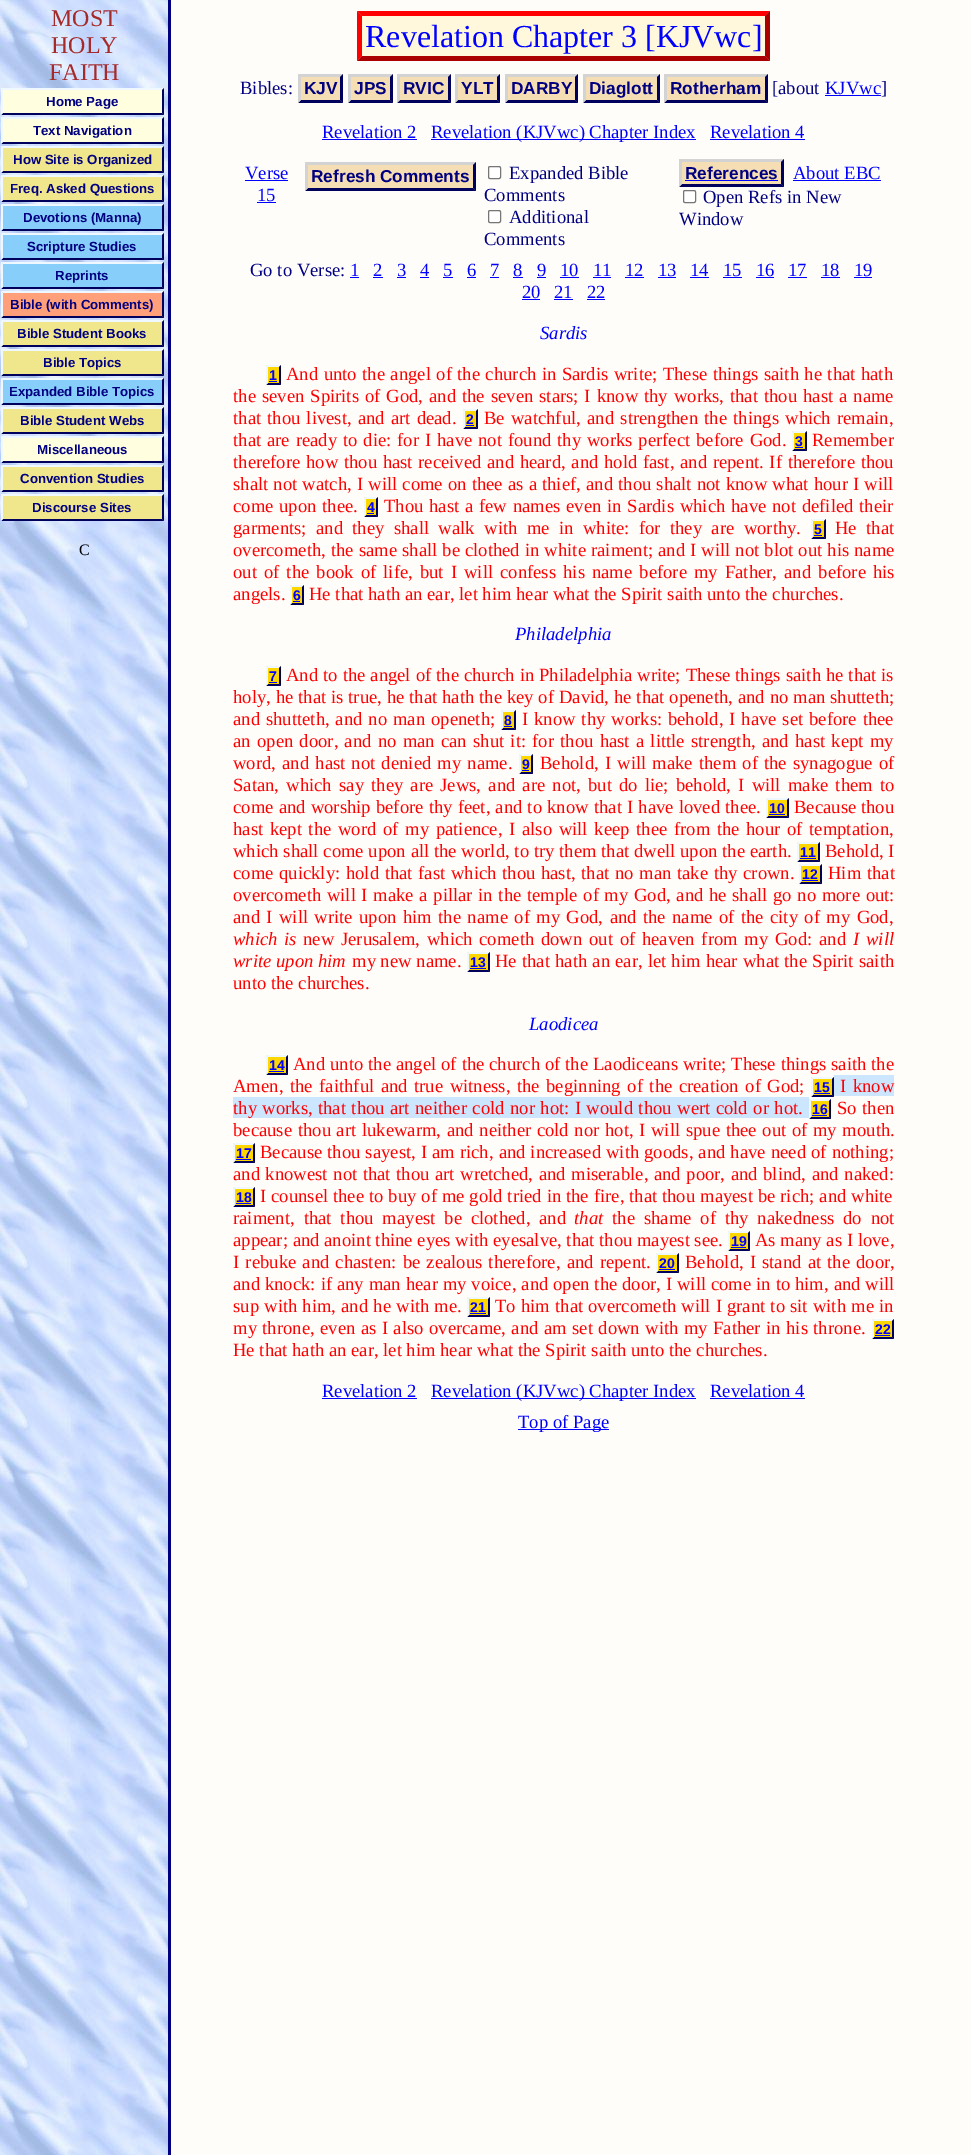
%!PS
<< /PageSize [971 2155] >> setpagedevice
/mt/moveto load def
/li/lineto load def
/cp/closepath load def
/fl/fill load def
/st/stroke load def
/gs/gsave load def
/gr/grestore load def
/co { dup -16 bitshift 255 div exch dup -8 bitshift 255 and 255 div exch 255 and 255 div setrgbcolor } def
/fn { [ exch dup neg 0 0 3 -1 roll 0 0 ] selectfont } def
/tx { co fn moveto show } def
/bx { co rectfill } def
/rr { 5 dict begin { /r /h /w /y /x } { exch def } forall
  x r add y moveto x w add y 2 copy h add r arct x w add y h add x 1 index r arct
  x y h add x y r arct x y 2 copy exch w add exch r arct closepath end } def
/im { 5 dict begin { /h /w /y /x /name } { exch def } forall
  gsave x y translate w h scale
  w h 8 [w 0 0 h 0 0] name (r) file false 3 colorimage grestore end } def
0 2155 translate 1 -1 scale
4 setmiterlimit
0 0 971 2155 16#FFFDFA bx
(media/1.raw) 0 0 168 2155 im
168 0 3 2155 16#000080 bx
1 88 163 27 16#FFFFE0 bx
16#F0F8FF co
1 88 mt 164 88 li 162 90 li 3 90 li cp fl
16#00005D co
164 88 mt 164 115 li 162 113 li 162 90 li cp fl
164 115 mt 1 115 li 3 113 li 162 113 li cp fl
16#F0F8FF co
1 115 mt 1 88 li 3 90 li 3 113 li cp fl
1 117 163 27 16#FFFFE0 bx
16#F0F8FF co
1 117 mt 164 117 li 162 119 li 3 119 li cp fl
16#00005D co
164 117 mt 164 144 li 162 142 li 162 119 li cp fl
164 144 mt 1 144 li 3 142 li 162 142 li cp fl
16#F0F8FF co
1 144 mt 1 117 li 3 119 li 3 142 li cp fl
1 146 163 27 16#F0E68C bx
16#F0F8FF co
1 146 mt 164 146 li 162 148 li 3 148 li cp fl
16#00005D co
164 146 mt 164 173 li 162 171 li 162 148 li cp fl
164 173 mt 1 173 li 3 171 li 162 171 li cp fl
16#F0F8FF co
1 173 mt 1 146 li 3 148 li 3 171 li cp fl
1 175 163 27 16#F0E68C bx
16#F0F8FF co
1 175 mt 164 175 li 162 177 li 3 177 li cp fl
16#00005D co
164 175 mt 164 202 li 162 200 li 162 177 li cp fl
164 202 mt 1 202 li 3 200 li 162 200 li cp fl
16#F0F8FF co
1 202 mt 1 175 li 3 177 li 3 200 li cp fl
1 204 163 27 16#87CEFA bx
16#F0F8FF co
1 204 mt 164 204 li 162 206 li 3 206 li cp fl
16#00005D co
164 204 mt 164 231 li 162 229 li 162 206 li cp fl
164 231 mt 1 231 li 3 229 li 162 229 li cp fl
16#F0F8FF co
1 231 mt 1 204 li 3 206 li 3 229 li cp fl
1 233 163 27 16#87CEFA bx
16#F0F8FF co
1 233 mt 164 233 li 162 235 li 3 235 li cp fl
16#00005D co
164 233 mt 164 260 li 162 258 li 162 235 li cp fl
164 260 mt 1 260 li 3 258 li 162 258 li cp fl
16#F0F8FF co
1 260 mt 1 233 li 3 235 li 3 258 li cp fl
1 262 163 27 16#87CEFA bx
16#F0F8FF co
1 262 mt 164 262 li 162 264 li 3 264 li cp fl
16#00005D co
164 262 mt 164 289 li 162 287 li 162 264 li cp fl
164 289 mt 1 289 li 3 287 li 162 287 li cp fl
16#F0F8FF co
1 289 mt 1 262 li 3 264 li 3 287 li cp fl
1 291 163 27 16#FFA07A bx
16#F0F8FF co
1 291 mt 164 291 li 162 293 li 3 293 li cp fl
16#00005D co
164 291 mt 164 318 li 162 316 li 162 293 li cp fl
164 318 mt 1 318 li 3 316 li 162 316 li cp fl
16#F0F8FF co
1 318 mt 1 291 li 3 293 li 3 316 li cp fl
1 320 163 27 16#F0E68C bx
16#F0F8FF co
1 320 mt 164 320 li 162 322 li 3 322 li cp fl
16#00005D co
164 320 mt 164 347 li 162 345 li 162 322 li cp fl
164 347 mt 1 347 li 3 345 li 162 345 li cp fl
16#F0F8FF co
1 347 mt 1 320 li 3 322 li 3 345 li cp fl
1 349 163 27 16#F0E68C bx
16#F0F8FF co
1 349 mt 164 349 li 162 351 li 3 351 li cp fl
16#00005D co
164 349 mt 164 376 li 162 374 li 162 351 li cp fl
164 376 mt 1 376 li 3 374 li 162 374 li cp fl
16#F0F8FF co
1 376 mt 1 349 li 3 351 li 3 374 li cp fl
1 378 163 27 16#87CEFA bx
16#F0F8FF co
1 378 mt 164 378 li 162 380 li 3 380 li cp fl
16#00005D co
164 378 mt 164 405 li 162 403 li 162 380 li cp fl
164 405 mt 1 405 li 3 403 li 162 403 li cp fl
16#F0F8FF co
1 405 mt 1 378 li 3 380 li 3 403 li cp fl
1 407 163 27 16#F0E68C bx
16#F0F8FF co
1 407 mt 164 407 li 162 409 li 3 409 li cp fl
16#00005D co
164 407 mt 164 434 li 162 432 li 162 409 li cp fl
164 434 mt 1 434 li 3 432 li 162 432 li cp fl
16#F0F8FF co
1 434 mt 1 407 li 3 409 li 3 432 li cp fl
1 436 163 27 16#FFFFE0 bx
16#F0F8FF co
1 436 mt 164 436 li 162 438 li 3 438 li cp fl
16#00005D co
164 436 mt 164 463 li 162 461 li 162 438 li cp fl
164 463 mt 1 463 li 3 461 li 162 461 li cp fl
16#F0F8FF co
1 463 mt 1 436 li 3 438 li 3 461 li cp fl
1 465 163 27 16#F0E68C bx
16#F0F8FF co
1 465 mt 164 465 li 162 467 li 3 467 li cp fl
16#00005D co
164 465 mt 164 492 li 162 490 li 162 467 li cp fl
164 492 mt 1 492 li 3 490 li 162 490 li cp fl
16#F0F8FF co
1 492 mt 1 465 li 3 467 li 3 490 li cp fl
1 494 163 27 16#F0E68C bx
16#F0F8FF co
1 494 mt 164 494 li 162 496 li 3 496 li cp fl
16#00005D co
164 494 mt 164 521 li 162 519 li 162 496 li cp fl
164 521 mt 1 521 li 3 519 li 162 519 li cp fl
16#F0F8FF co
1 521 mt 1 494 li 3 496 li 3 519 li cp fl
357 11 413 50 16#FFF8DC bx
16#FF0000 co
357 11 mt 770 11 li 765 16 li 362 16 li cp fl
16#AA0000 co
770 11 mt 770 61 li 765 56 li 765 16 li cp fl
770 61 mt 357 61 li 362 56 li 765 56 li cp fl
16#FF0000 co
357 61 mt 357 11 li 362 16 li 362 56 li cp fl
298 74 45 29 16#F5DEB3 bx
16#D3D3D3 co
298 74 mt 343 74 li 340 77 li 301 77 li cp fl
16#00005D co
343 74 mt 343 103 li 340 100 li 340 77 li cp fl
343 103 mt 298 103 li 301 100 li 340 100 li cp fl
16#D3D3D3 co
298 103 mt 298 74 li 301 77 li 301 100 li cp fl
348 74 45 29 16#F5DEB3 bx
16#D3D3D3 co
348 74 mt 393 74 li 390 77 li 351 77 li cp fl
16#00005D co
393 74 mt 393 103 li 390 100 li 390 77 li cp fl
393 103 mt 348 103 li 351 100 li 390 100 li cp fl
16#D3D3D3 co
348 103 mt 348 74 li 351 77 li 351 100 li cp fl
397 74 54 29 16#F5DEB3 bx
16#D3D3D3 co
397 74 mt 451 74 li 448 77 li 400 77 li cp fl
16#00005D co
451 74 mt 451 103 li 448 100 li 448 77 li cp fl
451 103 mt 397 103 li 400 100 li 448 100 li cp fl
16#D3D3D3 co
397 103 mt 397 74 li 400 77 li 400 100 li cp fl
455 74 45 29 16#F5DEB3 bx
16#D3D3D3 co
455 74 mt 500 74 li 497 77 li 458 77 li cp fl
16#00005D co
500 74 mt 500 103 li 497 100 li 497 77 li cp fl
500 103 mt 455 103 li 458 100 li 497 100 li cp fl
16#D3D3D3 co
455 103 mt 455 74 li 458 77 li 458 100 li cp fl
505 74 73 29 16#F5DEB3 bx
16#D3D3D3 co
505 74 mt 578 74 li 575 77 li 508 77 li cp fl
16#00005D co
578 74 mt 578 103 li 575 100 li 575 77 li cp fl
578 103 mt 505 103 li 508 100 li 575 100 li cp fl
16#D3D3D3 co
505 103 mt 505 74 li 508 77 li 508 100 li cp fl
583 74 77 29 16#F5DEB3 bx
16#D3D3D3 co
583 74 mt 660 74 li 657 77 li 586 77 li cp fl
16#00005D co
660 74 mt 660 103 li 657 100 li 657 77 li cp fl
660 103 mt 583 103 li 586 100 li 657 100 li cp fl
16#D3D3D3 co
583 103 mt 583 74 li 586 77 li 586 100 li cp fl
664 74 104 29 16#F5DEB3 bx
16#D3D3D3 co
664 74 mt 768 74 li 765 77 li 667 77 li cp fl
16#00005D co
768 74 mt 768 103 li 765 100 li 765 77 li cp fl
768 103 mt 664 103 li 667 100 li 765 100 li cp fl
16#D3D3D3 co
664 103 mt 664 74 li 667 77 li 667 100 li cp fl
825 95 56 1 16#0000FF bx
322 139 95 1 16#0000FF bx
431 139 265 1 16#0000FF bx
710 139 95 1 16#0000FF bx
245 180 43 1 16#0000FF bx
257 202 19 1 16#0000FF bx
305 162 171 29 16#F5DEB3 bx
16#D3D3D3 co
305 162 mt 476 162 li 473 165 li 308 165 li cp fl
16#00005D co
476 162 mt 476 191 li 473 188 li 473 165 li cp fl
476 191 mt 305 191 li 308 188 li 473 188 li cp fl
16#D3D3D3 co
305 191 mt 305 162 li 308 165 li 308 188 li cp fl
16#FFFFFF co
488.5 166.5 12 12 1.5 rr gs fl gr
16#767676 co
st
16#FFFFFF co
488.5 210.5 12 12 1.5 rr gs fl gr
16#767676 co
st
679 159 105 28 16#F5DEB3 bx
16#D3D3D3 co
679 159 mt 784 159 li 781 162 li 682 162 li cp fl
16#00005D co
784 159 mt 784 187 li 781 184 li 781 162 li cp fl
784 187 mt 679 187 li 682 184 li 781 184 li cp fl
16#D3D3D3 co
679 187 mt 679 159 li 682 162 li 682 184 li cp fl
685 180 93 1 16#0000FF bx
793 180 88 1 16#0000FF bx
16#FFFFFF co
683.5 190.5 12 12 1.5 rr gs fl gr
16#767676 co
st
350 277 9 1 16#0000FF bx
373 277 10 1 16#0000FF bx
397 277 9 1 16#0000FF bx
420 277 9 1 16#0000FF bx
443 277 10 1 16#0000FF bx
467 277 9 1 16#0000FF bx
490 277 9 1 16#0000FF bx
513 277 10 1 16#0000FF bx
537 277 9 1 16#0000FF bx
560 277 19 1 16#0000FF bx
593 277 18 1 16#0000FF bx
625 277 19 1 16#0000FF bx
658 277 18 1 16#0000FF bx
690 277 19 1 16#0000FF bx
723 277 19 1 16#0000FF bx
756 277 18 1 16#0000FF bx
788 277 19 1 16#0000FF bx
821 277 19 1 16#0000FF bx
854 277 18 1 16#0000FF bx
522 299 18 1 16#0000FF bx
554 299 19 1 16#0000FF bx
587 299 18 1 16#0000FF bx
266 365 15 20 16#FFD700 bx
16#F0F8FF co
266 365 mt 281 365 li 279 367 li 268 367 li cp fl
16#00005D co
281 365 mt 281 385 li 279 383 li 279 367 li cp fl
281 385 mt 266 385 li 268 383 li 279 383 li cp fl
16#F0F8FF co
266 385 mt 266 365 li 268 367 li 268 383 li cp fl
269 381 8 1 16#0000FF bx
463 409 15 20 16#FFD700 bx
16#F0F8FF co
463 409 mt 478 409 li 476 411 li 465 411 li cp fl
16#00005D co
478 409 mt 478 429 li 476 427 li 476 411 li cp fl
478 429 mt 463 429 li 465 427 li 476 427 li cp fl
16#F0F8FF co
463 429 mt 463 409 li 465 411 li 465 427 li cp fl
466 425 8 1 16#0000FF bx
792 431 15 20 16#FFD700 bx
16#F0F8FF co
792 431 mt 807 431 li 805 433 li 794 433 li cp fl
16#00005D co
807 431 mt 807 451 li 805 449 li 805 433 li cp fl
807 451 mt 792 451 li 794 449 li 805 449 li cp fl
16#F0F8FF co
792 451 mt 792 431 li 794 433 li 794 449 li cp fl
795 447 8 1 16#0000FF bx
364 497 14 20 16#FFD700 bx
16#F0F8FF co
364 497 mt 378 497 li 376 499 li 366 499 li cp fl
16#00005D co
378 497 mt 378 517 li 376 515 li 376 499 li cp fl
378 517 mt 364 517 li 366 515 li 376 515 li cp fl
16#F0F8FF co
364 517 mt 364 497 li 366 499 li 366 515 li cp fl
367 513 7 1 16#0000FF bx
811 519 15 20 16#FFD700 bx
16#F0F8FF co
811 519 mt 826 519 li 824 521 li 813 521 li cp fl
16#00005D co
826 519 mt 826 539 li 824 537 li 824 521 li cp fl
826 539 mt 811 539 li 813 537 li 824 537 li cp fl
16#F0F8FF co
811 539 mt 811 519 li 813 521 li 813 537 li cp fl
814 535 8 1 16#0000FF bx
290 585 14 20 16#FFD700 bx
16#F0F8FF co
290 585 mt 304 585 li 302 587 li 292 587 li cp fl
16#00005D co
304 585 mt 304 605 li 302 603 li 302 587 li cp fl
304 605 mt 290 605 li 292 603 li 302 603 li cp fl
16#F0F8FF co
290 605 mt 290 585 li 292 587 li 292 603 li cp fl
293 601 7 1 16#0000FF bx
266 666 15 20 16#FFD700 bx
16#F0F8FF co
266 666 mt 281 666 li 279 668 li 268 668 li cp fl
16#00005D co
281 666 mt 281 686 li 279 684 li 279 668 li cp fl
281 686 mt 266 686 li 268 684 li 279 684 li cp fl
16#F0F8FF co
266 686 mt 266 666 li 268 668 li 268 684 li cp fl
269 682 8 1 16#0000FF bx
501 710 15 20 16#FFD700 bx
16#F0F8FF co
501 710 mt 516 710 li 514 712 li 503 712 li cp fl
16#00005D co
516 710 mt 516 730 li 514 728 li 514 712 li cp fl
516 730 mt 501 730 li 503 728 li 514 728 li cp fl
16#F0F8FF co
501 730 mt 501 710 li 503 712 li 503 728 li cp fl
504 726 8 1 16#0000FF bx
519 754 14 20 16#FFD700 bx
16#F0F8FF co
519 754 mt 533 754 li 531 756 li 521 756 li cp fl
16#00005D co
533 754 mt 533 774 li 531 772 li 531 756 li cp fl
533 774 mt 519 774 li 521 772 li 531 772 li cp fl
16#F0F8FF co
519 774 mt 519 754 li 521 756 li 521 772 li cp fl
522 770 7 1 16#0000FF bx
766 798 23 20 16#FFD700 bx
16#F0F8FF co
766 798 mt 789 798 li 787 800 li 768 800 li cp fl
16#00005D co
789 798 mt 789 818 li 787 816 li 787 800 li cp fl
789 818 mt 766 818 li 768 816 li 787 816 li cp fl
16#F0F8FF co
766 818 mt 766 798 li 768 800 li 768 816 li cp fl
769 814 16 1 16#0000FF bx
797 842 23 20 16#FFD700 bx
16#F0F8FF co
797 842 mt 820 842 li 818 844 li 799 844 li cp fl
16#00005D co
820 842 mt 820 862 li 818 860 li 818 844 li cp fl
820 862 mt 797 862 li 799 860 li 818 860 li cp fl
16#F0F8FF co
797 862 mt 797 842 li 799 844 li 799 860 li cp fl
800 858 16 1 16#0000FF bx
799 864 23 20 16#FFD700 bx
16#F0F8FF co
799 864 mt 822 864 li 820 866 li 801 866 li cp fl
16#00005D co
822 864 mt 822 884 li 820 882 li 820 866 li cp fl
822 884 mt 799 884 li 801 882 li 820 882 li cp fl
16#F0F8FF co
799 884 mt 799 864 li 801 866 li 801 882 li cp fl
802 880 16 1 16#0000FF bx
467 952 23 20 16#FFD700 bx
16#F0F8FF co
467 952 mt 490 952 li 488 954 li 469 954 li cp fl
16#00005D co
490 952 mt 490 972 li 488 970 li 488 954 li cp fl
490 972 mt 467 972 li 469 970 li 488 970 li cp fl
16#F0F8FF co
467 972 mt 467 952 li 469 954 li 469 970 li cp fl
470 968 16 1 16#0000FF bx
266 1055 22 20 16#FFD700 bx
16#F0F8FF co
266 1055 mt 288 1055 li 286 1057 li 268 1057 li cp fl
16#00005D co
288 1055 mt 288 1075 li 286 1073 li 286 1057 li cp fl
288 1075 mt 266 1075 li 268 1073 li 286 1073 li cp fl
16#F0F8FF co
266 1075 mt 266 1055 li 268 1057 li 268 1073 li cp fl
269 1071 15 1 16#0000FF bx
811 1077 23 20 16#FFD700 bx
16#F0F8FF co
811 1077 mt 834 1077 li 832 1079 li 813 1079 li cp fl
16#00005D co
834 1077 mt 834 1097 li 832 1095 li 832 1079 li cp fl
834 1097 mt 811 1097 li 813 1095 li 832 1095 li cp fl
16#F0F8FF co
811 1097 mt 811 1077 li 813 1079 li 813 1095 li cp fl
814 1093 16 1 16#0000FF bx
834 1075 60 21 16#CCE6FF bx
233 1097 576 21 16#CCE6FF bx
809 1099 22 20 16#FFD700 bx
16#F0F8FF co
809 1099 mt 831 1099 li 829 1101 li 811 1101 li cp fl
16#00005D co
831 1099 mt 831 1119 li 829 1117 li 829 1101 li cp fl
831 1119 mt 809 1119 li 811 1117 li 829 1117 li cp fl
16#F0F8FF co
809 1119 mt 809 1099 li 811 1101 li 811 1117 li cp fl
812 1115 15 1 16#0000FF bx
233 1143 22 20 16#FFD700 bx
16#F0F8FF co
233 1143 mt 255 1143 li 253 1145 li 235 1145 li cp fl
16#00005D co
255 1143 mt 255 1163 li 253 1161 li 253 1145 li cp fl
255 1163 mt 233 1163 li 235 1161 li 253 1161 li cp fl
16#F0F8FF co
233 1163 mt 233 1143 li 235 1145 li 235 1161 li cp fl
236 1159 15 1 16#0000FF bx
233 1187 22 20 16#FFD700 bx
16#F0F8FF co
233 1187 mt 255 1187 li 253 1189 li 235 1189 li cp fl
16#00005D co
255 1187 mt 255 1207 li 253 1205 li 253 1189 li cp fl
255 1207 mt 233 1207 li 235 1205 li 253 1205 li cp fl
16#F0F8FF co
233 1207 mt 233 1187 li 235 1189 li 235 1205 li cp fl
236 1203 15 1 16#0000FF bx
728 1231 22 20 16#FFD700 bx
16#F0F8FF co
728 1231 mt 750 1231 li 748 1233 li 730 1233 li cp fl
16#00005D co
750 1231 mt 750 1251 li 748 1249 li 748 1233 li cp fl
750 1251 mt 728 1251 li 730 1249 li 748 1249 li cp fl
16#F0F8FF co
728 1251 mt 728 1231 li 730 1233 li 730 1249 li cp fl
731 1247 15 1 16#0000FF bx
656 1253 23 20 16#FFD700 bx
16#F0F8FF co
656 1253 mt 679 1253 li 677 1255 li 658 1255 li cp fl
16#00005D co
679 1253 mt 679 1273 li 677 1271 li 677 1255 li cp fl
679 1273 mt 656 1273 li 658 1271 li 677 1271 li cp fl
16#F0F8FF co
656 1273 mt 656 1253 li 658 1255 li 658 1271 li cp fl
659 1269 16 1 16#0000FF bx
467 1297 23 20 16#FFD700 bx
16#F0F8FF co
467 1297 mt 490 1297 li 488 1299 li 469 1299 li cp fl
16#00005D co
490 1297 mt 490 1317 li 488 1315 li 488 1299 li cp fl
490 1317 mt 467 1317 li 469 1315 li 488 1315 li cp fl
16#F0F8FF co
467 1317 mt 467 1297 li 469 1299 li 469 1315 li cp fl
470 1313 16 1 16#0000FF bx
872 1319 22 20 16#FFD700 bx
16#F0F8FF co
872 1319 mt 894 1319 li 892 1321 li 874 1321 li cp fl
16#00005D co
894 1319 mt 894 1339 li 892 1337 li 892 1321 li cp fl
894 1339 mt 872 1339 li 874 1337 li 892 1337 li cp fl
16#F0F8FF co
872 1339 mt 872 1319 li 874 1321 li 874 1337 li cp fl
875 1335 15 1 16#0000FF bx
322 1398 95 1 16#0000FF bx
431 1398 265 1 16#0000FF bx
710 1398 95 1 16#0000FF bx
518 1429 91 1 16#0000FF bx
(MOST) 51 26 /LiberationSerif-Regular 24 16#A52A2A tx
(HOLY) 51 53 /LiberationSerif-Regular 24 16#A52A2A tx
(FAITH) 49 80 /LiberationSerif-Regular 24 16#A52A2A tx
(Home Page) 46 106 /LiberationSans-Bold 13.25 16#000080 tx
(Text Navigation) 33 135 /LiberationSans-Bold 13.25 16#000080 tx
(How Site is Organized) 13 164 /LiberationSans-Bold 13.25 16#000080 tx
(Freq. Asked Questions) 10 193 /LiberationSans-Bold 13.25 16#000080 tx
(Devotions \(Manna\)) 23 222 /LiberationSans-Bold 13.25 16#000080 tx
(Scripture Studies) 27 251 /LiberationSans-Bold 13.25 16#000080 tx
(Reprints) 55 280 /LiberationSans-Bold 13.25 16#000080 tx
(Bible \(with Comments\)) 10 309 /LiberationSans-Bold 13.25 16#000080 tx
(Bible Student Books) 17 338 /LiberationSans-Bold 13.25 16#000080 tx
(Bible Topics) 43 367 /LiberationSans-Bold 13.25 16#000080 tx
(Expanded Bible Topics) 9 396 /LiberationSans-Bold 13.25 16#000080 tx
(Bible Student Webs) 20 425 /LiberationSans-Bold 13.25 16#000080 tx
(Miscellaneous) 37 454 /LiberationSans-Bold 13.25 16#000080 tx
(Convention Studies) 20 483 /LiberationSans-Bold 13.25 16#000080 tx
(Discourse Sites) 32 512 /LiberationSans-Bold 13.25 16#000080 tx
(C) 79 555 /LiberationSerif-Regular 16 16#000000 tx
(Revelation Chapter 3 [KJVwc]) 365 47 /LiberationSerif-Regular 32 16#0000FF tx
(Bibles:) 240 94 /LiberationSerif-Regular 18.65 16#000080 tx
(KJV) 304 94 /LiberationSans-Bold 17.25 16#000080 tx
(JPS) 354 94 /LiberationSans-Bold 17.25 16#000080 tx
(RVIC) 403 94 /LiberationSans-Bold 17.25 16#000080 tx
(YLT) 461 94 /LiberationSans-Bold 17.25 16#000080 tx
(DARBY) 511 94 /LiberationSans-Bold 17.25 16#000080 tx
(Diaglott) 589 94 /LiberationSans-Bold 17.25 16#000080 tx
(Rotherham) 670 94 /LiberationSans-Bold 17.25 16#000080 tx
([about) 772 94 /LiberationSerif-Regular 18.65 16#000080 tx
(KJVwc) 825 94 /LiberationSerif-Regular 18.65 16#0000FF tx
(]) 881 94 /LiberationSerif-Regular 18.65 16#000080 tx
(Revelation 2) 322 138 /LiberationSerif-Regular 18.65 16#0000FF tx
(Revelation \(KJVwc\) Chapter Index) 431 138 /LiberationSerif-Regular 18.65 16#0000FF tx
(Revelation 4) 710 138 /LiberationSerif-Regular 18.65 16#0000FF tx
(Verse) 245 179 /LiberationSerif-Regular 18.65 16#0000FF tx
(15) 257 201 /LiberationSerif-Regular 18.65 16#0000FF tx
(Refresh Comments) 311 182 /LiberationSans-Bold 17.25 16#000080 tx
(Expanded Bible) 509 179 /LiberationSerif-Regular 18.65 16#000080 tx
(Comments) 484 201 /LiberationSerif-Regular 18.65 16#000080 tx
(Additional) 509 223 /LiberationSerif-Regular 18.65 16#000080 tx
(Comments) 484 245 /LiberationSerif-Regular 18.65 16#000080 tx
(References) 685 179 /LiberationSans-Bold 17.25 16#000080 tx
(About EBC) 793 179 /LiberationSerif-Regular 18.65 16#0000FF tx
(Open Refs in New) 703 203 /LiberationSerif-Regular 18.65 16#000080 tx
(Window) 679 225 /LiberationSerif-Regular 18.65 16#000080 tx
(Go to Verse:) 250 276 /LiberationSerif-Regular 18.65 16#000080 tx
(1) 350 276 /LiberationSerif-Regular 18.65 16#0000FF tx
(2) 373 276 /LiberationSerif-Regular 18.65 16#0000FF tx
(3) 397 276 /LiberationSerif-Regular 18.65 16#0000FF tx
(4) 420 276 /LiberationSerif-Regular 18.65 16#0000FF tx
(5) 443 276 /LiberationSerif-Regular 18.65 16#0000FF tx
(6) 467 276 /LiberationSerif-Regular 18.65 16#0000FF tx
(7) 490 276 /LiberationSerif-Regular 18.65 16#0000FF tx
(8) 513 276 /LiberationSerif-Regular 18.65 16#0000FF tx
(9) 537 276 /LiberationSerif-Regular 18.65 16#0000FF tx
(10) 560 276 /LiberationSerif-Regular 18.65 16#0000FF tx
(11) 593 276 /LiberationSerif-Regular 18.65 16#0000FF tx
(12) 625 276 /LiberationSerif-Regular 18.65 16#0000FF tx
(13) 658 276 /LiberationSerif-Regular 18.65 16#0000FF tx
(14) 690 276 /LiberationSerif-Regular 18.65 16#0000FF tx
(15) 723 276 /LiberationSerif-Regular 18.65 16#0000FF tx
(16) 756 276 /LiberationSerif-Regular 18.65 16#0000FF tx
(17) 788 276 /LiberationSerif-Regular 18.65 16#0000FF tx
(18) 821 276 /LiberationSerif-Regular 18.65 16#0000FF tx
(19) 854 276 /LiberationSerif-Regular 18.65 16#0000FF tx
(20) 522 298 /LiberationSerif-Regular 18.65 16#0000FF tx
(21) 554 298 /LiberationSerif-Regular 18.65 16#0000FF tx
(22) 587 298 /LiberationSerif-Regular 18.65 16#0000FF tx
(Sardis) 540 339 /LiberationSerif-Italic 18.65 16#0000FF tx
(1) 269 380 /LiberationSans-Bold 14 16#0000FF tx
/LiberationSerif-Regular 18.65 fn
16#FF0000 co
286 380 mt .8 0 32 (And unto the angel of the church in Sardis write; These things saith he that hath) widthshow
233 402 mt 1.3 0 32 (the seven Spirits of God, and the seven stars; I know thy works, that thou hast a name) widthshow
233 424 mt 1.5 0 32 (that thou livest, and art dead.) widthshow
(2) 466 424 /LiberationSans-Bold 14 16#0000FF tx
/LiberationSerif-Regular 18.65 fn
16#FF0000 co
484 424 mt 1.6 0 32 (Be watchful, and strengthen the things which remain,) widthshow
233 446 mt 1.25 0 32 (that are ready to die: for I have not found thy works perfect before God.) widthshow
(3) 795 446 /LiberationSans-Bold 14 16#0000FF tx
(Remember) 812 446 /LiberationSerif-Regular 18.65 16#FF0000 tx
233 468 mt 1 0 32 (therefore how thou hast received and heard, and hold fast, and repent. If therefore thou) widthshow
233 490 mt .5 0 32 (shalt not watch, I will come on thee as a thief, and thou shalt not know what hour I will) widthshow
233 512 mt 1 0 32 (come upon thee.) widthshow
(4) 367 512 /LiberationSans-Bold 14 16#0000FF tx
/LiberationSerif-Regular 18.65 fn
16#FF0000 co
384 512 mt 1.1 0 32 (Thou hast a few names even in Sardis which have not defiled their) widthshow
233 534 mt 4.75 0 32 (garments; and they shall walk with me in white: for they are worthy.) widthshow
(5) 814 534 /LiberationSans-Bold 14 16#0000FF tx
/LiberationSerif-Regular 18.65 fn
16#FF0000 co
835 534 mt 4.75 0 32 (He that) widthshow
233 556 mt .4 0 32 (overcometh, the same shall be clothed in white raiment; and I will not blot out his name) widthshow
233 578 mt 2.4 0 32 (out of the book of life, but I will confess his name before my Father, and before his) widthshow
(angels.) 233 600 /LiberationSerif-Regular 18.65 16#FF0000 tx
(6) 293 600 /LiberationSans-Bold 14 16#0000FF tx
(He that hath an ear, let him hear what the Spirit saith unto the churches.) 309 600 /LiberationSerif-Regular 18.65 16#FF0000 tx
(Philadelphia) 515 640 /LiberationSerif-Italic 18.65 16#0000FF tx
(7) 269 681 /LiberationSans-Bold 14 16#0000FF tx
/LiberationSerif-Regular 18.65 fn
16#FF0000 co
286 681 mt .3 0 32 (And to the angel of the church in Philadelphia write; These things saith he that is) widthshow
233 703 mt .2 0 32 (holy, he that is true, he that hath the key of David, he that openeth, and no man shutteth;) widthshow
233 725 mt 1.25 0 32 (and shutteth, and no man openeth;) widthshow
(8) 504 725 /LiberationSans-Bold 14 16#0000FF tx
/LiberationSerif-Regular 18.65 fn
16#FF0000 co
522 725 mt 1.25 0 32 (I know thy works: behold, I have set before thee) widthshow
233 747 mt 1.6 0 32 (an open door, and no man can shut it: for thou hast a little strength, and hast kept my) widthshow
233 769 mt 1.5 0 32 (word, and hast not denied my name.) widthshow
(9) 522 769 /LiberationSans-Bold 14 16#0000FF tx
/LiberationSerif-Regular 18.65 fn
16#FF0000 co
540 769 mt 1.5 0 32 (Behold, I will make them of the synagogue of) widthshow
233 791 mt 2.5 0 32 (Satan, which say they are Jews, and are not, but do lie; behold, I will make them to) widthshow
233 813 mt .5 0 32 (come and worship before thy feet, and to know that I have loved thee.) widthshow
(10) 769 813 /LiberationSans-Bold 14 16#0000FF tx
(Because thou) 794 813 /LiberationSerif-Regular 18.65 16#FF0000 tx
233 835 mt 2 0 32 (hast kept the word of my patience, I also will keep thee from the hour of temptation,) widthshow
233 857 mt .1 0 32 (which shall come upon all the world, to try them that dwell upon the earth.) widthshow
(11) 800 857 /LiberationSans-Bold 14 16#0000FF tx
(Behold, I) 825 857 /LiberationSerif-Regular 18.65 16#FF0000 tx
233 879 mt 1 0 32 (come quickly: hold that fast which thou hast, that no man take thy crown.) widthshow
(12) 802 879 /LiberationSans-Bold 14 16#0000FF tx
/LiberationSerif-Regular 18.65 fn
16#FF0000 co
828 879 mt 1 0 32 (Him that) widthshow
233 901 mt 1 0 32 (overcometh will I make a pillar in the temple of my God, and he shall go no more out:) widthshow
233 923 mt 1.75 0 32 (and I will write upon him the name of my God, and the name of the city of my God,) widthshow
/LiberationSerif-Italic 18.65 fn
233 945 mt 2.1 0 32 (which is) widthshow
/LiberationSerif-Regular 18.65 fn
303 945 mt 2.1 0 32 (new Jerusalem, which cometh down out of heaven from my God: and) widthshow
/LiberationSerif-Italic 18.65 fn
853 945 mt 2.1 0 32 (I will) widthshow
(write upon him) 233 967 /LiberationSerif-Italic 18.65 16#FF0000 tx
(my new name.) 352 967 /LiberationSerif-Regular 18.65 16#FF0000 tx
(13) 470 967 /LiberationSans-Bold 14 16#0000FF tx
/LiberationSerif-Regular 18.65 fn
16#FF0000 co
495 967 mt .5 0 32 (He that hath an ear, let him hear what the Spirit saith) widthshow
(unto the churches.) 233 989 /LiberationSerif-Regular 18.65 16#FF0000 tx
(Laodicea) 529 1030 /LiberationSerif-Italic 18.65 16#0000FF tx
(14) 269 1070 /LiberationSans-Bold 14 16#0000FF tx
/LiberationSerif-Regular 18.65 fn
16#FF0000 co
293 1070 mt .25 0 32 (And unto the angel of the church of the Laodiceans write; These things saith the) widthshow
233 1092 mt 1.9 0 32 (Amen, the faithful and true witness, the beginning of the creation of God;) widthshow
(15) 814 1092 /LiberationSans-Bold 14 16#0000FF tx
/LiberationSerif-Regular 18.65 fn
16#FF0000 co
840 1092 mt 1.9 0 32 (I know) widthshow
233 1114 mt .8 0 32 (thy works, that thou art neither cold nor hot: I would thou wert cold or hot.) widthshow
(16) 812 1114 /LiberationSans-Bold 14 16#0000FF tx
/LiberationSerif-Regular 18.65 fn
16#FF0000 co
837 1114 mt .8 0 32 (So then) widthshow
233 1136 mt 1 0 32 (because thou art lukewarm, and neither cold nor hot, I will spue thee out of my mouth.) widthshow
(17) 236 1158 /LiberationSans-Bold 14 16#0000FF tx
/LiberationSerif-Regular 18.65 fn
16#FF0000 co
260 1158 mt .4 0 32 (Because thou sayest, I am rich, and increased with goods, and have need of nothing;) widthshow
233 1180 mt .9 0 32 (and knowest not that thou art wretched, and miserable, and poor, and blind, and naked:) widthshow
(18) 236 1202 /LiberationSans-Bold 14 16#0000FF tx
/LiberationSerif-Regular 18.65 fn
16#FF0000 co
260 1202 mt .25 0 32 (I counsel thee to buy of me gold tried in the fire, that thou mayest be rich; and white) widthshow
233 1224 mt 4.25 0 32 (raiment, that thou mayest be clothed, and) widthshow
(that) 574 1224 /LiberationSerif-Italic 18.65 16#FF0000 tx
/LiberationSerif-Regular 18.65 fn
612 1224 mt 4.25 0 32 (the shame of thy nakedness do not) widthshow
(appear; and anoint thine eyes with eyesalve, that thou mayest see.) 233 1246 /LiberationSerif-Regular 18.65 16#FF0000 tx
(19) 731 1246 /LiberationSans-Bold 14 16#0000FF tx
(As many as I love,) 755 1246 /LiberationSerif-Regular 18.65 16#FF0000 tx
233 1268 mt 1.5 0 32 (I rebuke and chasten: be zealous therefore, and repent.) widthshow
(20) 659 1268 /LiberationSans-Bold 14 16#0000FF tx
/LiberationSerif-Regular 18.65 fn
16#FF0000 co
685 1268 mt 1.5 0 32 (Behold, I stand at the door,) widthshow
233 1290 mt .25 0 32 (and knock: if any man hear my voice, and open the door, I will come in to him, and will) widthshow
233 1312 mt .5 0 32 (sup with him, and he with me.) widthshow
(21) 470 1312 /LiberationSans-Bold 14 16#0000FF tx
/LiberationSerif-Regular 18.65 fn
16#FF0000 co
495 1312 mt .5 0 32 (To him that overcometh will I grant to sit with me in) widthshow
233 1334 mt .8 0 32 (my throne, even as I also overcame, and am set down with my Father in his throne.) widthshow
(22) 875 1334 /LiberationSans-Bold 14 16#0000FF tx
(He that hath an ear, let him hear what the Spirit saith unto the churches.) 233 1356 /LiberationSerif-Regular 18.65 16#FF0000 tx
(Revelation 2) 322 1397 /LiberationSerif-Regular 18.65 16#0000FF tx
(Revelation \(KJVwc\) Chapter Index) 431 1397 /LiberationSerif-Regular 18.65 16#0000FF tx
(Revelation 4) 710 1397 /LiberationSerif-Regular 18.65 16#0000FF tx
(Top of Page) 518 1428 /LiberationSerif-Regular 18.65 16#0000FF tx
showpage
